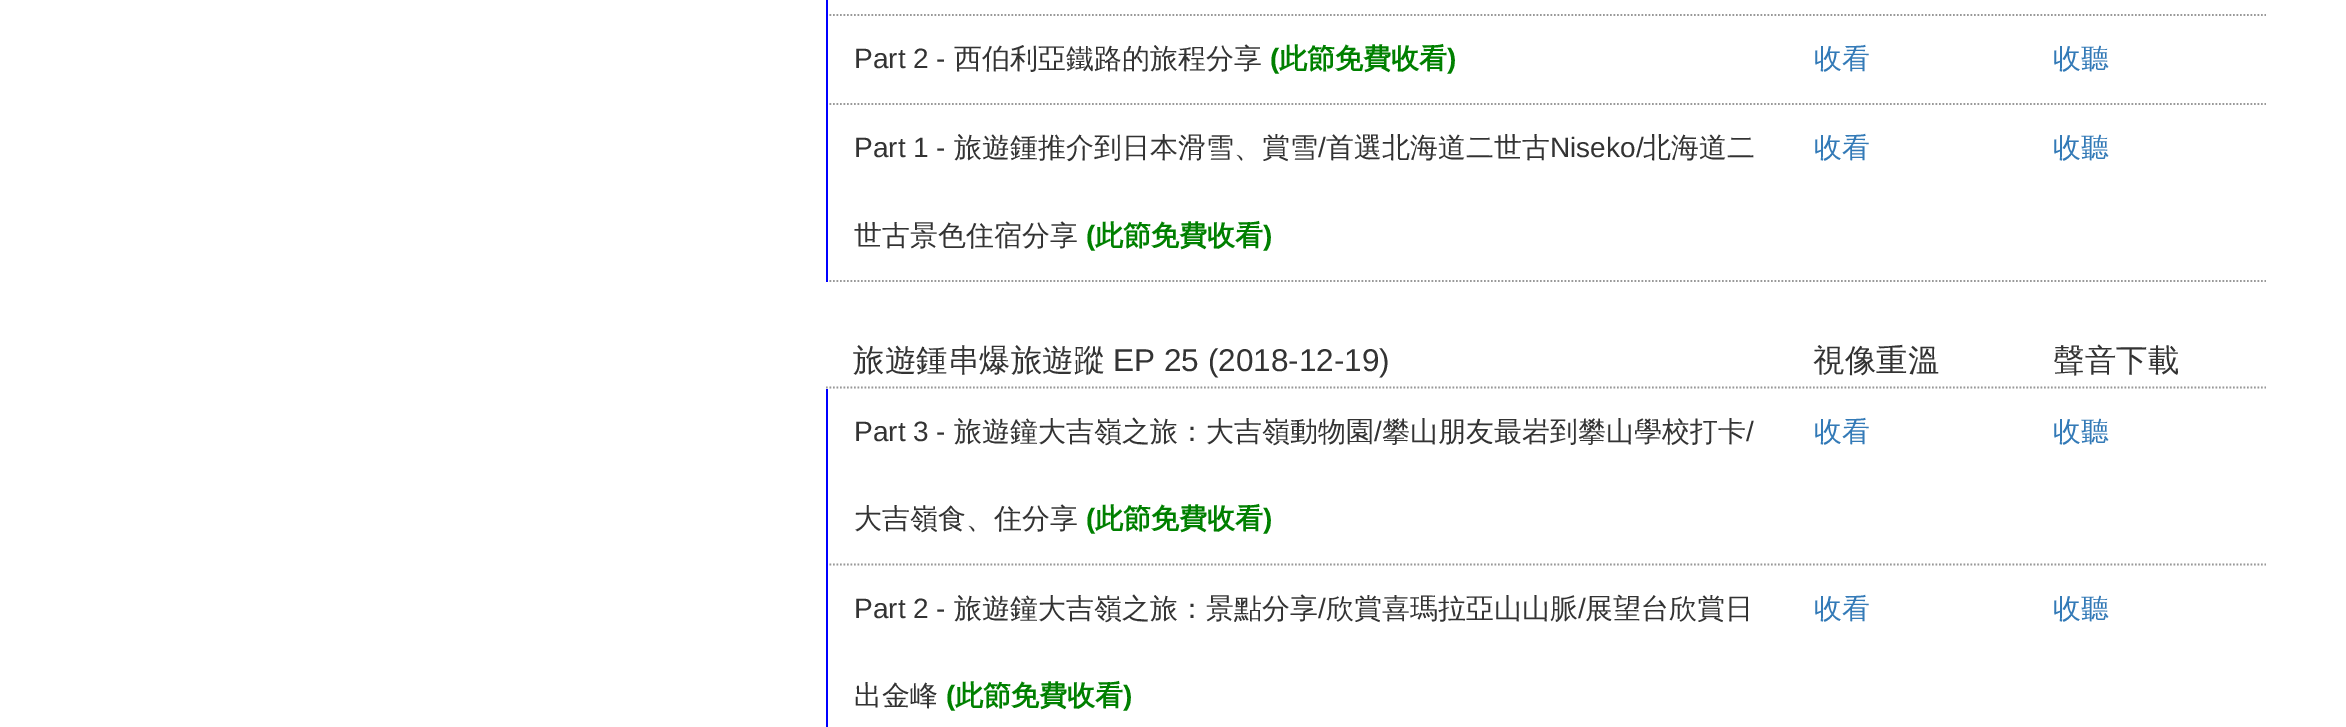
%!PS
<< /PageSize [2346 727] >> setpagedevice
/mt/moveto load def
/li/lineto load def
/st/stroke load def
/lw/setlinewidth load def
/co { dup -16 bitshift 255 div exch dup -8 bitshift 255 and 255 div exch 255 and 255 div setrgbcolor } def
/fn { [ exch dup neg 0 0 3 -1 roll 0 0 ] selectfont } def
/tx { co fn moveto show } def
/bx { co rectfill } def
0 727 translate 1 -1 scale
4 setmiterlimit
0 0 2346 727 16#FFFFFF bx
16#999999 co
1.8 lw
[1.75 1.75] 0 setdash
826 15 mt 2266 15 li st
826 0 2 16 16#0000FF bx
16#999999 co
826 104 mt 2266 104 li st
826 16 2 89 16#0000FF bx
16#999999 co
826 281 mt 2266 281 li st
826 105 2 177 16#0000FF bx
16#999999 co
826 387.5 mt 2266 387.5 li st
826 564.5 mt 2266 564.5 li st
826 389 2 338 16#0000FF bx
(Part 2 -) 854 68 /LiberationSans-Regular 28 16#333333 tx
(西伯利亞鐵路的旅程分享) 954 68 /WenQuanYiZenHei-Medium 28 16#333333 tx
(\() 1270 68 /LiberationSans-Bold 28 16#008000 tx
(此節免費收看) 1279 68 /WenQuanYiZenHei-Bold 28 16#008000 tx
(\)) 1447 68 /LiberationSans-Bold 28 16#008000 tx
(收看) 1814 68 /WenQuanYiZenHei-Medium 28 16#337AB7 tx
(收聽) 2053 68 /WenQuanYiZenHei-Medium 28 16#337AB7 tx
(Part 1 -) 854 157 /LiberationSans-Regular 28 16#333333 tx
(旅遊鍾推介到日本滑雪、賞雪) 954 157 /WenQuanYiZenHei-Medium 28 16#333333 tx
(/) 1318 157 /LiberationSans-Regular 28 16#333333 tx
(首選北海道二世古) 1326 157 /WenQuanYiZenHei-Medium 28 16#333333 tx
(Niseko/) 1550 157 /LiberationSans-Regular 28 16#333333 tx
(北海道二) 1643 157 /WenQuanYiZenHei-Medium 28 16#333333 tx
(世古景色住宿分享) 854 245 /WenQuanYiZenHei-Medium 28 16#333333 tx
(\() 1086 245 /LiberationSans-Bold 28 16#008000 tx
(此節免費收看) 1095 245 /WenQuanYiZenHei-Bold 28 16#008000 tx
(\)) 1263 245 /LiberationSans-Bold 28 16#008000 tx
(收看) 1814 157 /WenQuanYiZenHei-Medium 28 16#337AB7 tx
(收聽) 2053 157 /WenQuanYiZenHei-Medium 28 16#337AB7 tx
(旅遊鍾串爆旅遊蹤) 853 371 /WenQuanYiZenHei-Medium 31.5 16#333333 tx
(EP 25 \(2018-12-19\)) 1113 371 /LiberationSans-Regular 31.5 16#333333 tx
(視像重溫) 1813 371 /WenQuanYiZenHei-Medium 31.5 16#333333 tx
(聲音下載) 2053 371 /WenQuanYiZenHei-Medium 31.5 16#333333 tx
(Part 3 -) 854 441 /LiberationSans-Regular 28 16#333333 tx
(旅遊鐘大吉嶺之旅：大吉嶺動物園) 954 441 /WenQuanYiZenHei-Medium 28 16#333333 tx
(/) 1374 441 /LiberationSans-Regular 28 16#333333 tx
(攀山朋友最岩到攀山學校打卡) 1382 441 /WenQuanYiZenHei-Medium 28 16#333333 tx
(/) 1746 441 /LiberationSans-Regular 28 16#333333 tx
(大吉嶺食、住分享) 854 528 /WenQuanYiZenHei-Medium 28 16#333333 tx
(\() 1086 528 /LiberationSans-Bold 28 16#008000 tx
(此節免費收看) 1095 528 /WenQuanYiZenHei-Bold 28 16#008000 tx
(\)) 1263 528 /LiberationSans-Bold 28 16#008000 tx
(收看) 1814 441 /WenQuanYiZenHei-Medium 28 16#337AB7 tx
(收聽) 2053 441 /WenQuanYiZenHei-Medium 28 16#337AB7 tx
(Part 2 -) 854 618 /LiberationSans-Regular 28 16#333333 tx
(旅遊鐘大吉嶺之旅：景點分享) 954 618 /WenQuanYiZenHei-Medium 28 16#333333 tx
(/) 1318 618 /LiberationSans-Regular 28 16#333333 tx
(欣賞喜瑪拉亞山山脈) 1326 618 /WenQuanYiZenHei-Medium 28 16#333333 tx
(/) 1578 618 /LiberationSans-Regular 28 16#333333 tx
(展望台欣賞日) 1585 618 /WenQuanYiZenHei-Medium 28 16#333333 tx
(出金峰) 854 705 /WenQuanYiZenHei-Medium 28 16#333333 tx
(\() 946 705 /LiberationSans-Bold 28 16#008000 tx
(此節免費收看) 955 705 /WenQuanYiZenHei-Bold 28 16#008000 tx
(\)) 1123 705 /LiberationSans-Bold 28 16#008000 tx
(收看) 1814 618 /WenQuanYiZenHei-Medium 28 16#337AB7 tx
(收聽) 2053 618 /WenQuanYiZenHei-Medium 28 16#337AB7 tx
showpage
